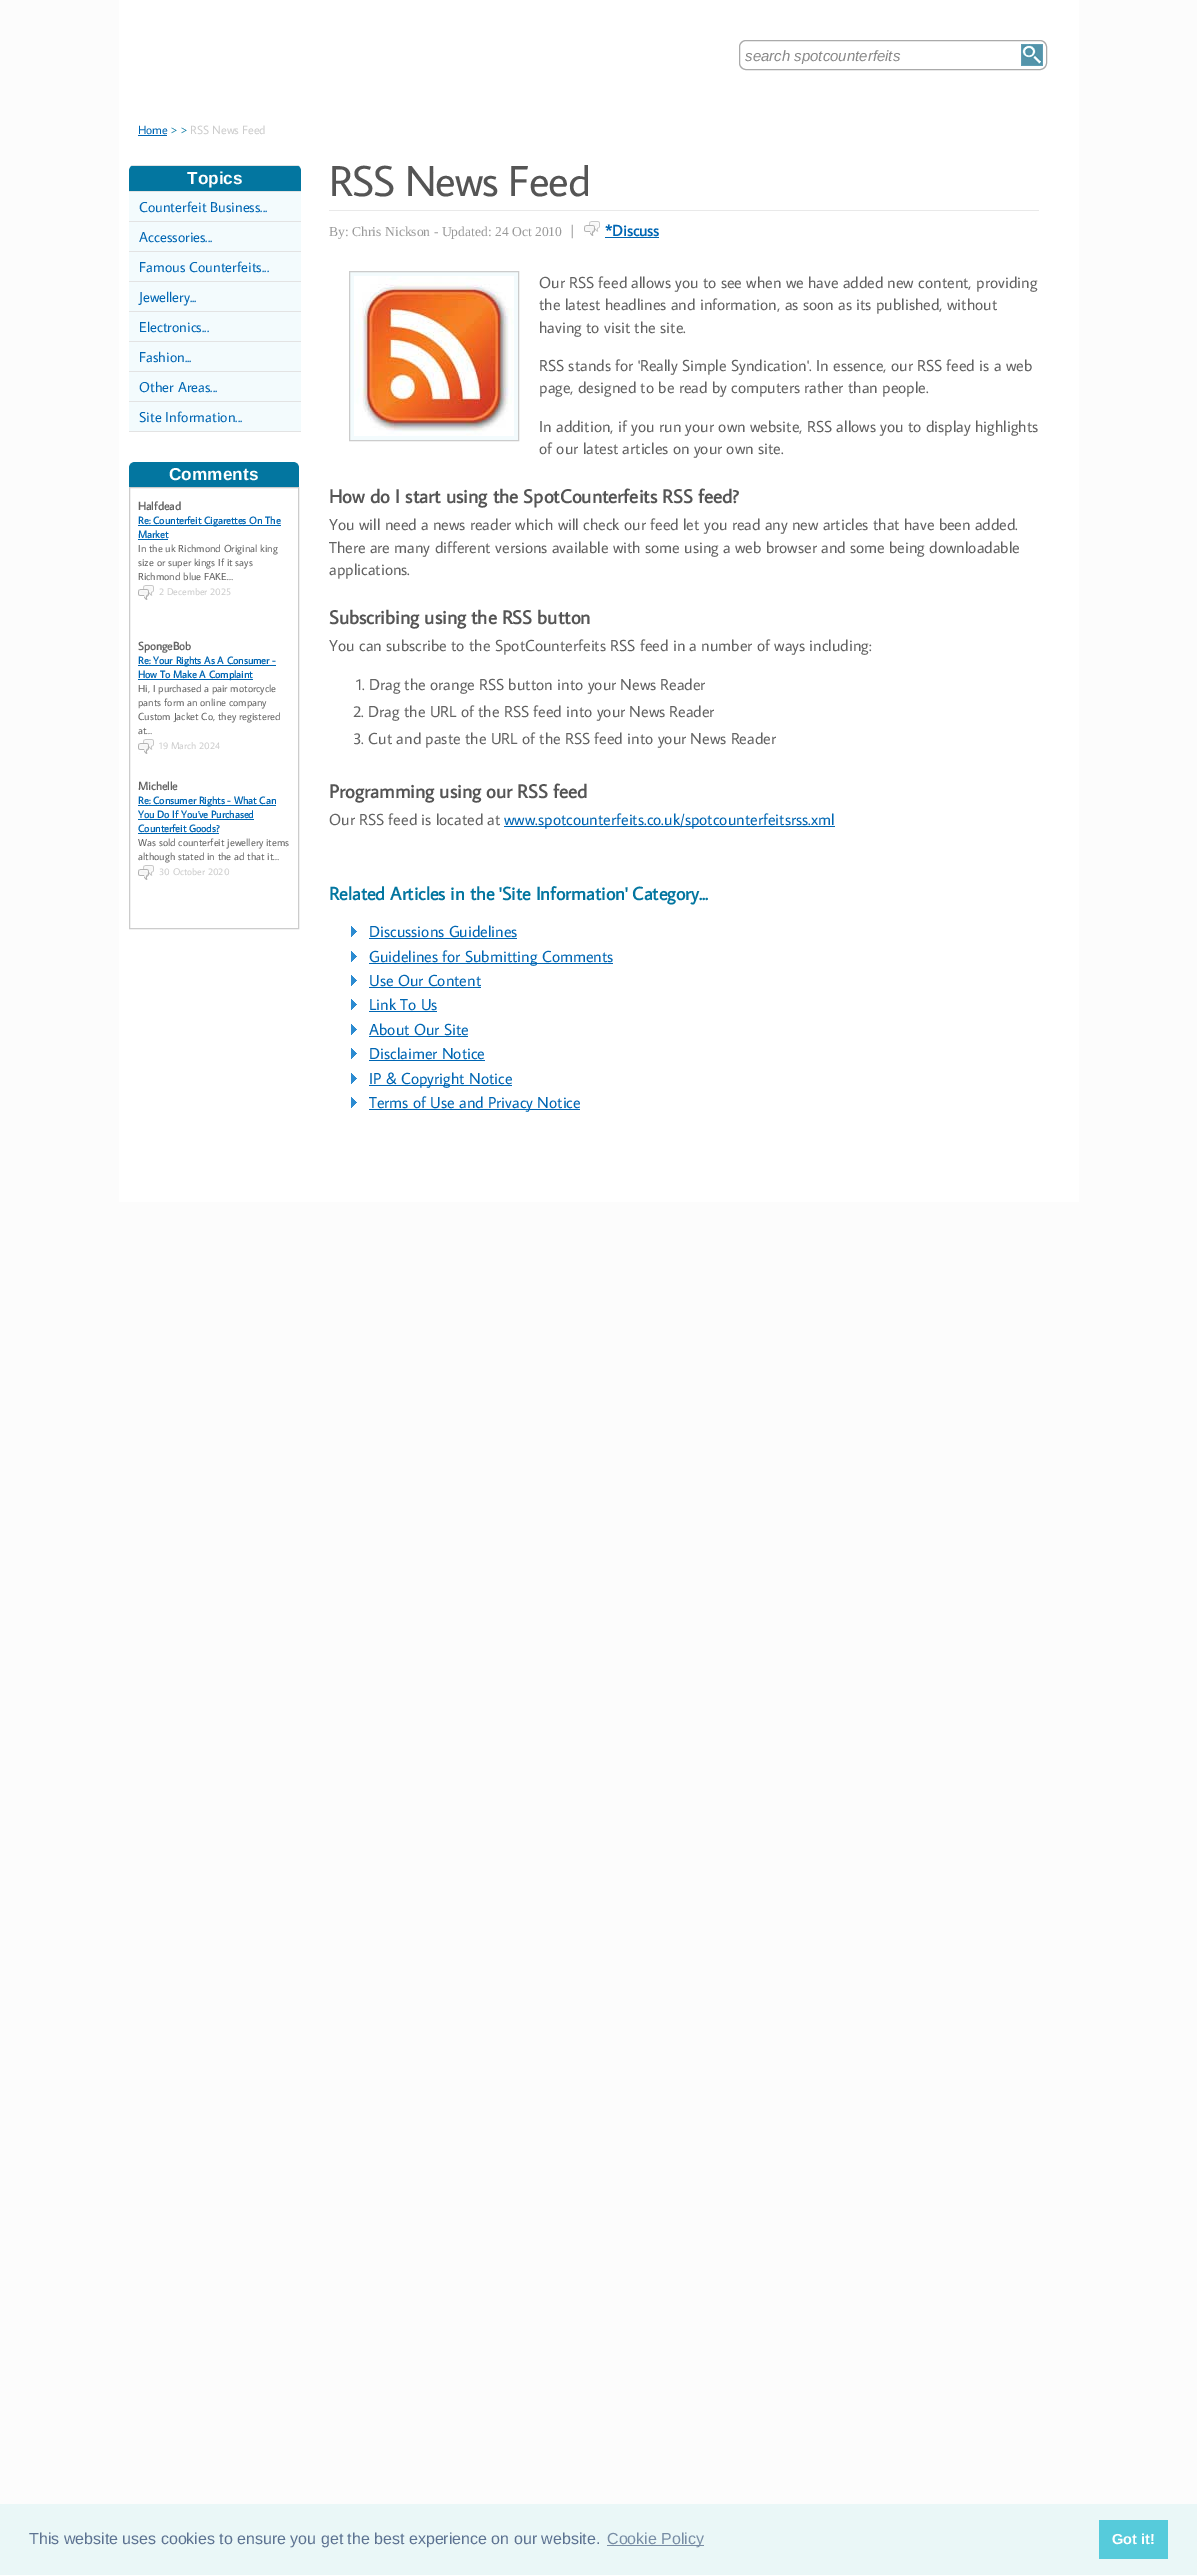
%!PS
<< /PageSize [1197 2575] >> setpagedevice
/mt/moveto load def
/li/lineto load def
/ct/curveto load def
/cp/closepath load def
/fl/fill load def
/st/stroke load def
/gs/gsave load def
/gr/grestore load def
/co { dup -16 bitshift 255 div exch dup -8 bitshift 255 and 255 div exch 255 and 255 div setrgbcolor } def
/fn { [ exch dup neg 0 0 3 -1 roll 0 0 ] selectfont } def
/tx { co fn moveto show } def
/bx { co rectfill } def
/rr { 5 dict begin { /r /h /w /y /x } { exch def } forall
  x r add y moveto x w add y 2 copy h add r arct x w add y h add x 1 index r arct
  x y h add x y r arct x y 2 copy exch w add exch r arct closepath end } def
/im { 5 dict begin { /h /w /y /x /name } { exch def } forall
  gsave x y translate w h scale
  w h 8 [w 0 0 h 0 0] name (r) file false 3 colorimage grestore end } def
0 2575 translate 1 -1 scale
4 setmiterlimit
0 0 1197 2575 16#FCFCFC bx
119 0 960 1202 16#FFFFFF bx
16#AAAAAA co
739.5 40.5 307 29 6.5 rr st
(media/1.raw) 1021 44 22 22 im
138 135 29 1 16#0066B3 bx
16#0376A0 co
135 165 mt 295 165 li 298.5 165 301 167.5 301 171 ct 301 192 li 129 192 li 129 171 li 129 167.5 131.5 165 135 165 ct cp fl
132 165 166 1 16#E3E3E3 bx
129 191 172 1 16#E3E3E3 bx
129 192 172 29 16#F3FBFD bx
129 221 172 1 16#E3E3E3 bx
129 222 172 29 16#F3FBFD bx
129 251 172 1 16#E3E3E3 bx
129 252 172 29 16#F3FBFD bx
129 281 172 1 16#E3E3E3 bx
129 282 172 29 16#F3FBFD bx
129 311 172 1 16#E3E3E3 bx
129 312 172 29 16#F3FBFD bx
129 341 172 1 16#E3E3E3 bx
129 342 172 29 16#F3FBFD bx
129 371 172 1 16#E3E3E3 bx
129 372 172 29 16#F3FBFD bx
129 401 172 1 16#E3E3E3 bx
129 402 172 29 16#F3FBFD bx
129 431 172 1 16#E3E3E3 bx
16#0376A0 co
135 462 mt 293 462 li 296.5 462 299 464.5 299 468 ct 299 487 li 129 487 li 129 468 li 129 464.5 131.5 462 135 462 ct cp fl
16#CCCCCC co
129.5 487.5 169 441 rectstroke
138 525 143 1 16#0066B3 bx
138 539 30 1 16#0066B3 bx
(media/2.raw) 138 585 16 15 im
138 665 138 1 16#0066B3 bx
138 679 115 1 16#0066B3 bx
(media/2.raw) 138 739 16 15 im
138 805 138 1 16#0066B3 bx
138 819 116 1 16#0066B3 bx
138 833 81 1 16#0066B3 bx
(media/2.raw) 138 865 16 15 im
329 210 710 1 16#E9E9E9 bx
(media/2.raw) 584 221 16 15 im
605 237 54 1 16#0066B3 bx
16#F3FBFD co
349.5 271.5 mt 518.5 271.5 li 518.5 440.5 li 349.5 440.5 li cp gs fl gr
16#CCCCCC co
st
(media/3.raw) 354 276 160 160 im
504 826 331 1 16#0066B3 bx
(media/4.raw) 351 926 6 11 im
369 938 148 1 16#0066B3 bx
(media/4.raw) 351 951 6 11 im
369 963 244 1 16#0066B3 bx
(media/4.raw) 351 975 6 11 im
369 987 112 1 16#0066B3 bx
(media/4.raw) 351 999 6 11 im
369 1011 68 1 16#0066B3 bx
(media/4.raw) 351 1024 6 11 im
369 1036 99 1 16#0066B3 bx
(media/4.raw) 351 1048 6 11 im
369 1060 116 1 16#0066B3 bx
(media/4.raw) 351 1073 6 11 im
369 1085 143 1 16#0066B3 bx
(media/4.raw) 351 1097 6 11 im
369 1109 211 1 16#0066B3 bx
0 2504 1197 71 16#EAF7F7 bx
607 2545 97 1 16#788DA5 bx
1099 2520 69 39 16#56CBDB bx
(search spotcounterfeits) 745 61 /LiberationSans-Italic 15 16#888888 tx
(Home) 138 134 /AverageSans-Regular 12 16#0066B3 tx
(> >) 171 134 /AverageSans-Regular 12 16#0376A0 tx
(RSS News Feed) 190 134 /AverageSans-Regular 12 16#CCCCCC tx
(Topics) 187 184 /LiberationSans-Bold 17.25 16#FFFFFF tx
(Counterfeit Business...) 139 212 /AverageSans-Regular 14.4 16#0066B3 tx
(Accessories...) 139 242 /AverageSans-Regular 14.4 16#0066B3 tx
(Famous Counterfeits...) 139 272 /AverageSans-Regular 14.4 16#0066B3 tx
(Jewellery...) 139 302 /AverageSans-Regular 14.4 16#0066B3 tx
(Electronics...) 139 332 /AverageSans-Regular 14.4 16#0066B3 tx
(Fashion...) 139 362 /AverageSans-Regular 14.4 16#0066B3 tx
(Other Areas...) 139 392 /AverageSans-Regular 14.4 16#0066B3 tx
(Site Information...) 139 422 /AverageSans-Regular 14.4 16#0066B3 tx
(Comments) 169 480 /LiberationSans-Bold 17.25 16#FFFFFF tx
(Halfdead) 138 510 /AverageSans-Bold 11.5 16#636363 tx
(Re: Counterfeit Cigarettes On The) 138 524 /AverageSans-Bold 10.3 16#0066B3 tx
(Market) 138 538 /AverageSans-Bold 10.3 16#0066B3 tx
(In the uk Richmond Original king) 138 552 /AverageSans-Regular 10.3 16#636363 tx
(size or super kings If it says) 138 566 /AverageSans-Regular 10.3 16#636363 tx
(Richmond blue FAKE…) 138 580 /AverageSans-Regular 10.3 16#636363 tx
(2 December 2025) 159 595 /AverageSans-Regular 9.75 16#CCCCCC tx
(SpongeBob) 138 650 /AverageSans-Bold 11.5 16#636363 tx
(Re: Your Rights As A Consumer -) 138 664 /AverageSans-Bold 10.3 16#0066B3 tx
(How To Make A Complaint) 138 678 /AverageSans-Bold 10.3 16#0066B3 tx
(Hi, I purchased a pair motorcycle) 138 692 /AverageSans-Regular 10.3 16#636363 tx
(pants form an online company) 138 706 /AverageSans-Regular 10.3 16#636363 tx
(Custom Jacket Co, they registered) 138 720 /AverageSans-Regular 10.3 16#636363 tx
(at…) 138 734 /AverageSans-Regular 10.3 16#636363 tx
(19 March 2024) 159 749 /AverageSans-Regular 9.75 16#CCCCCC tx
(Michelle) 138 790 /AverageSans-Bold 11.5 16#636363 tx
(Re: Consumer Rights - What Can) 138 804 /AverageSans-Bold 10.3 16#0066B3 tx
(You Do If You've Purchased) 138 818 /AverageSans-Bold 10.3 16#0066B3 tx
(Counterfeit Goods?) 138 832 /AverageSans-Bold 10.3 16#0066B3 tx
(Was sold counterfeit jewellery items) 138 846 /AverageSans-Regular 10.3 16#636363 tx
(although stated in the ad that it…) 138 860 /AverageSans-Regular 10.3 16#636363 tx
(30 October 2020) 159 875 /AverageSans-Regular 9.75 16#CCCCCC tx
/AverageSans-Regular 43.25 fn
16#555555 co
329 196 mt -1 0 (RSS News Feed) ashow
(By: Chris Nickson - Updated: 24 Oct 2010) 329 236 /LiberationSerif-Regular 13.6 16#999999 tx
(|) 570 236 /AverageSans-Regular 16 16#999999 tx
(*Discuss) 605 236 /AverageSans-Bold 15.5 16#0066B3 tx
(Our RSS feed allows you to see when we have added new content, providing) 539 288 /AverageSans-Regular 16 16#636363 tx
(the latest headlines and information, as soon as its published, without) 539 310 /AverageSans-Regular 16 16#636363 tx
(having to visit the site.) 539 333 /AverageSans-Regular 16 16#636363 tx
(RSS stands for 'Really Simple Syndication'. In essence, our RSS feed is a web) 539 371 /AverageSans-Regular 16 16#636363 tx
(page, designed to be read by computers rather than people.) 539 393 /AverageSans-Regular 16 16#636363 tx
(In addition, if you run your own website, RSS allows you to display highlights) 539 432 /AverageSans-Regular 16 16#636363 tx
(of our latest articles on your own site.) 539 454 /AverageSans-Regular 16 16#636363 tx
(How do I start using the SpotCounterfeits RSS feed?) 329 503 /AverageSans-Bold 19.2 16#555555 tx
(You will need a news reader which will check our feed let you read any new articles that have been added.) 329 530 /AverageSans-Regular 16 16#636363 tx
(There are many different versions available with some using a web browser and some being downloadable) 329 553 /AverageSans-Regular 16 16#636363 tx
(applications.) 329 575 /AverageSans-Regular 16 16#636363 tx
(Subscribing using the RSS button) 329 624 /AverageSans-Bold 19.2 16#555555 tx
(You can subscribe to the SpotCounterfeits RSS feed in a number of ways including:) 329 651 /AverageSans-Regular 16 16#636363 tx
(1. Drag the orange RSS button into your News Reader) 356 690 /AverageSans-Regular 16 16#636363 tx
(2. Drag the URL of the RSS feed into your News Reader) 353 717 /AverageSans-Regular 16 16#636363 tx
(3. Cut and paste the URL of the RSS feed into your News Reader) 353 744 /AverageSans-Regular 16 16#636363 tx
(Programming using our RSS feed) 329 798 /AverageSans-Bold 19.2 16#555555 tx
(Our RSS feed is located at) 329 825 /AverageSans-Regular 16 16#636363 tx
(www.spotcounterfeits.co.uk/spotcounterfeitsrss.xml) 504 825 /AverageSans-Regular 16 16#0066B3 tx
(Related Articles in the 'Site Information' Category...) 329 900 /AverageSans-Bold 18.4 16#0376A0 tx
(Discussions Guidelines) 369 937 /AverageSans-Regular 16 16#0066B3 tx
(Guidelines for Submitting Comments) 369 962 /AverageSans-Regular 16 16#0066B3 tx
(Use Our Content) 369 986 /AverageSans-Regular 16 16#0066B3 tx
(Link To Us) 369 1010 /AverageSans-Regular 16 16#0066B3 tx
(About Our Site) 369 1035 /AverageSans-Regular 16 16#0066B3 tx
(Disclaimer Notice) 369 1059 /AverageSans-Regular 16 16#0066B3 tx
(IP & Copyright Notice) 369 1084 /AverageSans-Regular 16 16#0066B3 tx
(Terms of Use and Privacy Notice) 369 1108 /AverageSans-Regular 16 16#0066B3 tx
(This website uses cookies to ensure you get the best experience on our website.) 29 2544 /LiberationSans-Regular 16 16#5C7291 tx
(Cookie Policy) 607 2544 /LiberationSans-Regular 16 16#788DA5 tx
(Got it!) 1112 2544 /LiberationSans-Bold 14.5 16#FFFFFF tx
showpage
